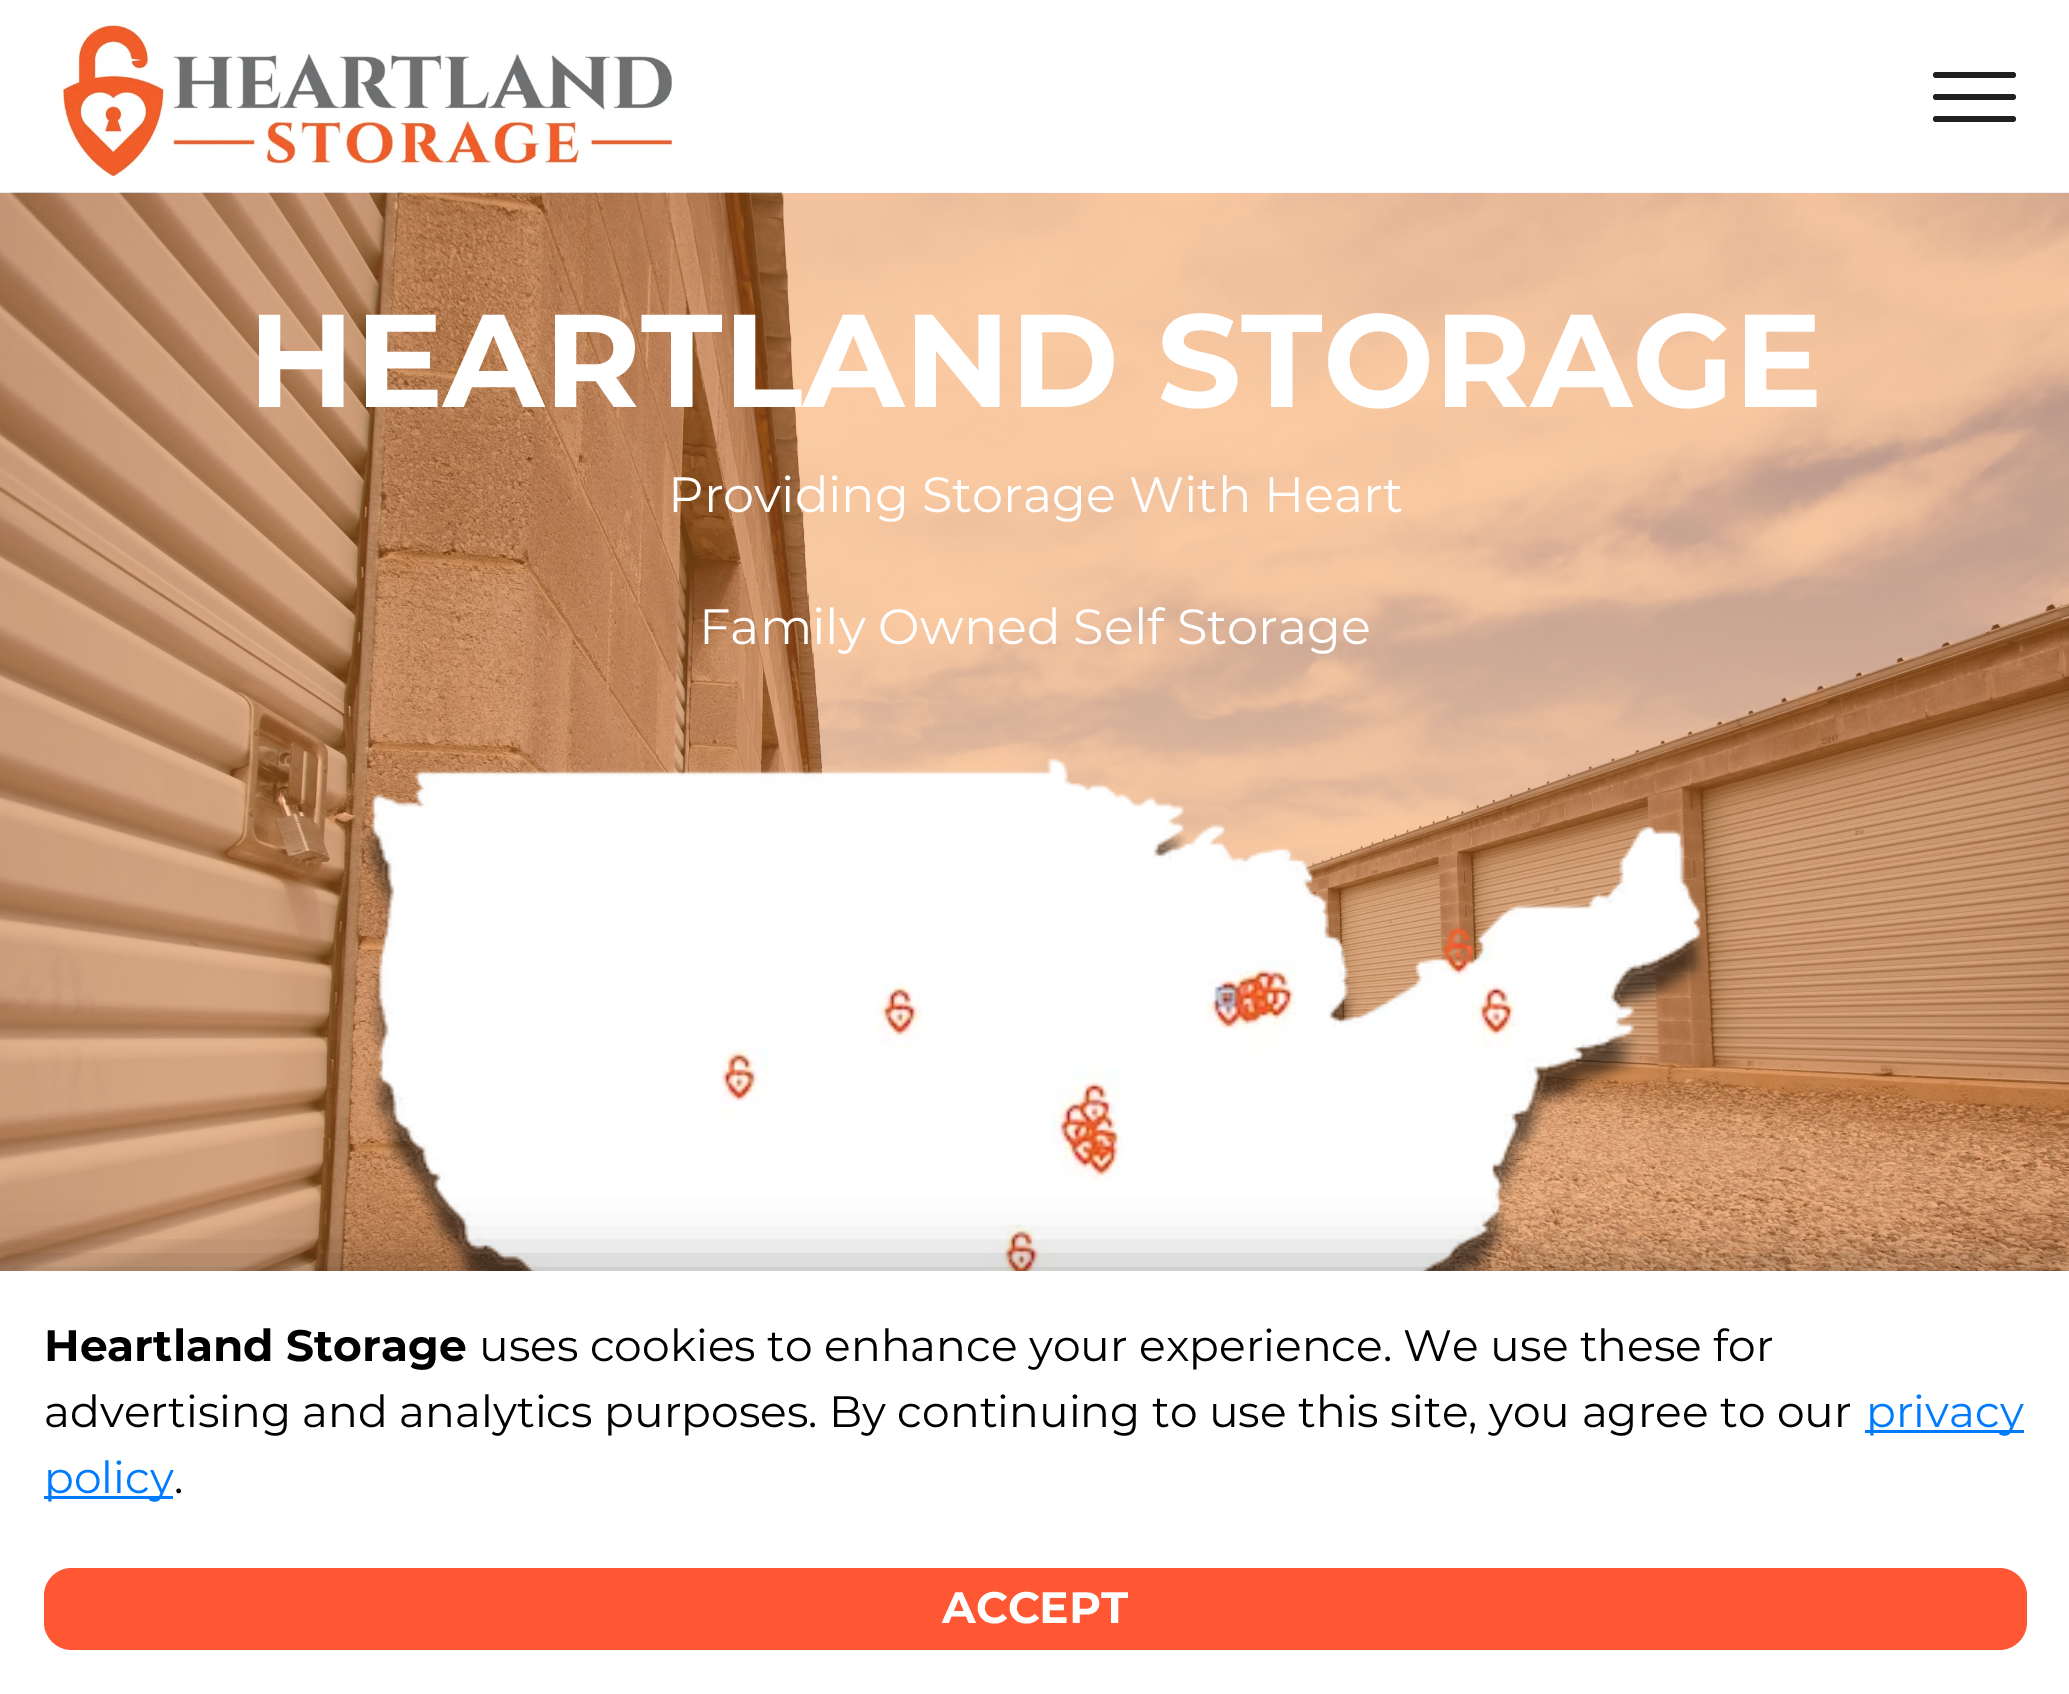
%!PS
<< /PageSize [2069 1694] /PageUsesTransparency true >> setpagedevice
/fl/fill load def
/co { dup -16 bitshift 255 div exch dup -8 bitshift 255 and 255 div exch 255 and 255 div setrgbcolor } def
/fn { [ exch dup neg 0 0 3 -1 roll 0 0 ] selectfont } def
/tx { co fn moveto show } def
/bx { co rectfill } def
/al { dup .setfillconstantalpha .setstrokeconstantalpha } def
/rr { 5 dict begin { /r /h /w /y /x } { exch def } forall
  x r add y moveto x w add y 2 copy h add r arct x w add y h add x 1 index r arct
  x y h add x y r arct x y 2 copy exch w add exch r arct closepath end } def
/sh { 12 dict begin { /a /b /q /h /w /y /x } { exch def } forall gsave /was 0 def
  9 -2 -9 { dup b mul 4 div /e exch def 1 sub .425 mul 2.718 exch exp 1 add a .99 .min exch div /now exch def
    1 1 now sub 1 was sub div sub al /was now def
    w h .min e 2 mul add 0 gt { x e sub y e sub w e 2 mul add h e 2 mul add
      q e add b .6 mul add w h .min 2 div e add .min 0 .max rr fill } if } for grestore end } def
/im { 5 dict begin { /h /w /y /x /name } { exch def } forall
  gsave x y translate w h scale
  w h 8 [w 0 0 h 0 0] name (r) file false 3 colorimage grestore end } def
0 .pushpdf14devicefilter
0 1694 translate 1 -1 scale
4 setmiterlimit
0 0 2069 1694 16#FFFFFF bx
(media/1.raw) 63 24 610 154 im
16#202020 co
1933 72 83 6 3 rr fl
1933 94 83 6 3 rr fl
1933 116 83 6 3 rr fl
(media/2.raw) 0 192 2069 1079 im
(media/3.raw) 362 758 1346 513 im
16#000000 co
0 1260 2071 423 0 27.5 .25 sh
0 1271 2069 423 16#FFFFFF bx
1865 1430 159 3 16#007BFF bx
44 1496 129 3 16#007BFF bx
16#FF5733 co
44 1568 1983 82 28 rr fl
(HEARTLAND STORAGE) 248 407 /Montserrat-Bold 132 16#FFFFFF tx
(Providing Storage With Heart) 668 512 /Montserrat-Regular 49.5 16#FFFFFF tx
(Family Owned Self Storage) 699 644 /Montserrat-Regular 49.5 16#FFFFFF tx
(Heartland Storage) 44 1361 /Montserrat-Bold 44 16#000000 tx
(uses cookies to enhance your experience. We use these for) 479 1361 /Montserrat-Regular 44 16#000000 tx
(advertising and analytics purposes. By continuing to use this site, you agree to our) 44 1427 /Montserrat-Regular 44 16#000000 tx
(privacy) 1866 1427 /Montserrat-Regular 44 16#007BFF tx
(policy) 44 1493 /Montserrat-Regular 44 16#007BFF tx
(.) 174 1493 /Montserrat-Regular 44 16#000000 tx
(ACCEPT) 942 1623 /Montserrat-Bold 44 16#FFFFFF tx
.poppdf14devicefilter showpage
